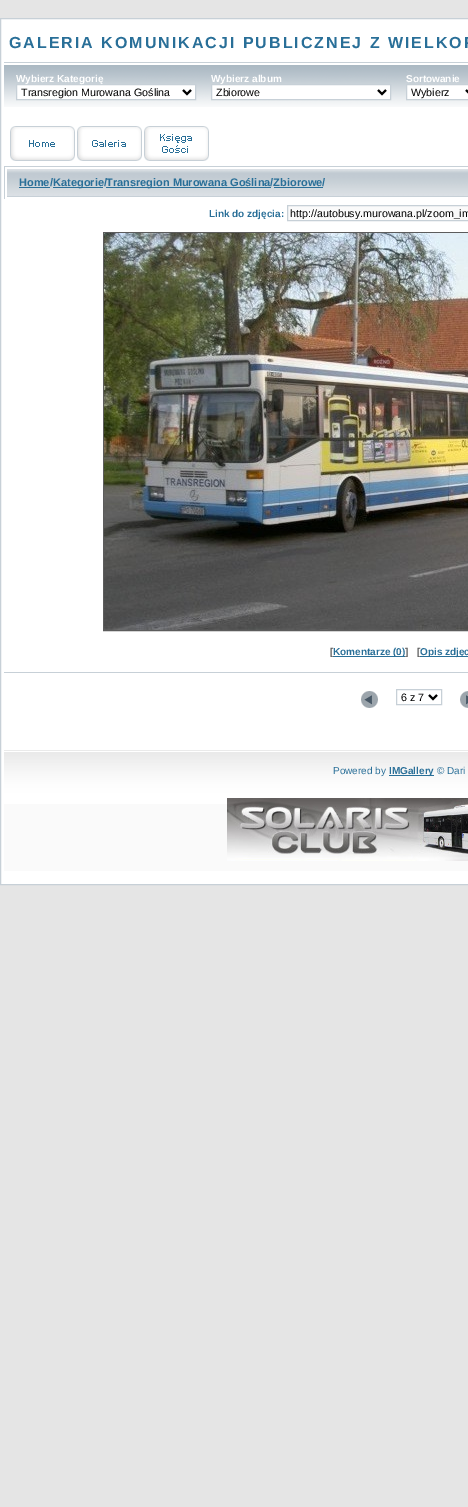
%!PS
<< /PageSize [468 1507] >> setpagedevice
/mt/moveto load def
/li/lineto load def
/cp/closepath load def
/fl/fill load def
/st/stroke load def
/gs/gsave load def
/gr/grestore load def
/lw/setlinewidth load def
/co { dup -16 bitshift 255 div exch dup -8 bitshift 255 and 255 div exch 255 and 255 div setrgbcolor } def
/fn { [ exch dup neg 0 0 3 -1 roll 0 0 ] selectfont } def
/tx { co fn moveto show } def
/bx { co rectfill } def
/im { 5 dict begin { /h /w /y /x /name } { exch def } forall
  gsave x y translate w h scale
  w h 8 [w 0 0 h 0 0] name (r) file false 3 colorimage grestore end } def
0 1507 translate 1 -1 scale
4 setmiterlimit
0 0 468 1507 16#E5E5E5 bx
16#FFFFFF co
.5 18.5 mt 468.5 18.5 li 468.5 884.5 li .5 884.5 li cp gs fl gr
16#C7D0D7 co
st
(media/1.raw) 4 62 464 45 im
16#FFFFFF co
16.5 84.5 mt 195.5 84.5 li 195.5 99.5 li 16.5 99.5 li cp gs fl gr
16#C7D0D7 co
st
16#000000 co
2 lw
183 90 mt 187 94 li 191 90 li st
16#FFFFFF co
211.5 84.5 mt 390.5 84.5 li 390.5 99.5 li 211.5 99.5 li cp gs fl gr
16#C7D0D7 co
1 lw
st
16#000000 co
2 lw
378 90 mt 382 94 li 386 90 li st
16#FFFFFF co
406.5 84.5 mt 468.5 84.5 li 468.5 99.5 li 406.5 99.5 li cp gs fl gr
16#C7D0D7 co
1 lw
st
16#000000 co
2 lw
466 90 mt 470 94 li 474 90 li st
(media/2.raw) 10 126 65 35 im
(media/3.raw) 77 126 65 35 im
(media/4.raw) 144 126 65 35 im
(media/5.raw) 4 166 5 33 im
(media/6.raw) 9 166 459 33 im
19 187 31 1 16#296F98 bx
53 187 50 1 16#296F98 bx
106 187 165 1 16#296F98 bx
274 187 49 1 16#296F98 bx
16#FAFAFA co
287.5 205.5 mt 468.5 205.5 li 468.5 220.5 li 287.5 220.5 li cp gs fl gr
16#C7D0D7 co
1 lw
st
16#5C5C5C co
103.5 232.5 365 398 rectstroke
(media/7.raw) 104 233 364 397 im
333 656 72 1 16#296F98 bx
420 656 48 1 16#296F98 bx
4 672 464 1 16#C7D0D7 bx
(media/8.raw) 361 691 17 17 im
396.5 689.5 45 15 rectstroke
16#000000 co
2 lw
429 695 mt 433 699 li 437 695 li st
(media/9.raw) 460 691 8 17 im
4 804 464 67 16#FAFAFA bx
(media/10.raw) 4 750 464 54 im
389 775 45 1 16#296F98 bx
(media/11.raw) 227 798 241 63 im
/LiberationSans-Bold 16 fn
9 48 mt 2 0 (GALERIA KOMUNIKACJI PUBLICZNEJ Z WIELKOP) ashow
(Wybierz Kategorię) 16 82 /LiberationSans-Bold 10 16#FFFFFF tx
(Transregion Murowana Goślina) 21 96 /LiberationSans-Regular 10.7 16#000000 tx
(Wybierz album) 211 82 /LiberationSans-Bold 10 16#FFFFFF tx
(Zbiorowe) 216 96 /LiberationSans-Regular 10.7 16#000000 tx
(Sortowanie) 406 82 /LiberationSans-Bold 10 16#FFFFFF tx
(Wybierz) 411 96 /LiberationSans-Regular 10.7 16#000000 tx
(Home/) 19 186 /LiberationSans-Bold 11 16#296F98 tx
(Kategorie/) 53 186 /LiberationSans-Bold 11 16#296F98 tx
(Transregion Murowana Goślina/Zbiorowe/) 106 186 /LiberationSans-Bold 11 16#296F98 tx
(Link do zdjęcia:) 209 217 /LiberationSans-Bold 10 16#296F98 tx
gs
290 207 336 12 rectclip
(http://autobusy.murowana.pl/zoom_im) 290 217 /LiberationSans-Regular 10.7 16#000000 tx
gr
([) 330 655 /LiberationSans-Bold 10 16#5C5C5C tx
(Komentarze \(0\)) 333 655 /LiberationSans-Bold 10 16#296F98 tx
(]) 405 655 /LiberationSans-Bold 10 16#5C5C5C tx
([) 417 655 /LiberationSans-Bold 10 16#5C5C5C tx
(Opis zdjęc) 420 655 /LiberationSans-Bold 10 16#296F98 tx
(6 z 7) 401 701 /LiberationSans-Regular 10.7 16#000000 tx
(Powered by) 333 774 /LiberationSans-Regular 10 16#296F98 tx
(IMGallery) 389 774 /LiberationSans-Bold 10 16#296F98 tx
(© Dari) 437 774 /LiberationSans-Regular 10 16#296F98 tx
showpage
